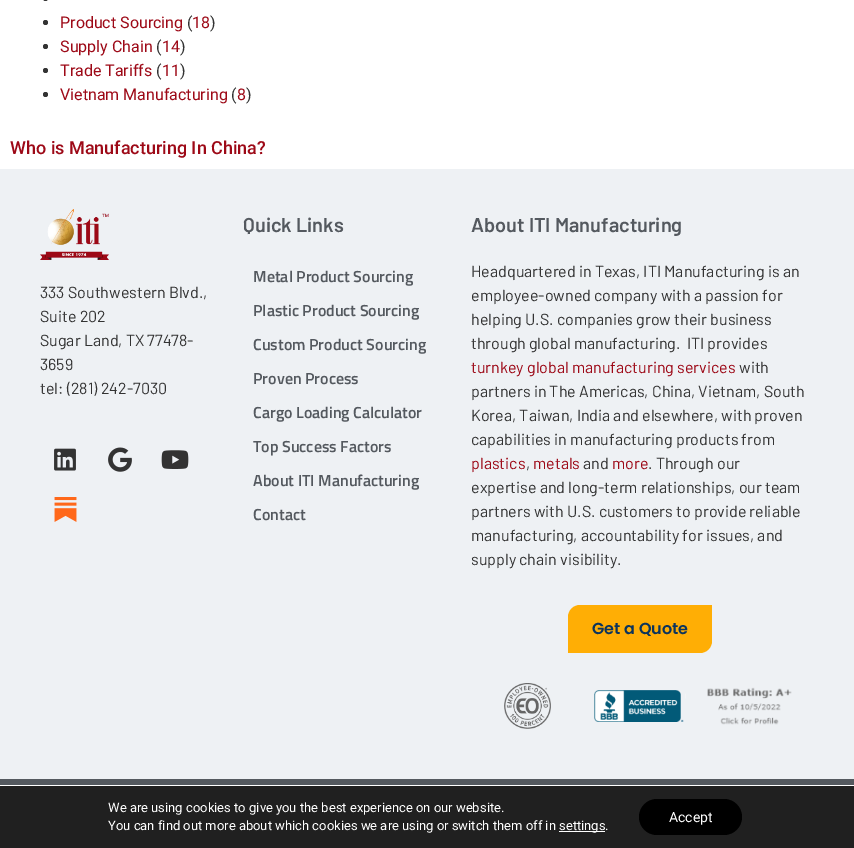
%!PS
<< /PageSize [854 848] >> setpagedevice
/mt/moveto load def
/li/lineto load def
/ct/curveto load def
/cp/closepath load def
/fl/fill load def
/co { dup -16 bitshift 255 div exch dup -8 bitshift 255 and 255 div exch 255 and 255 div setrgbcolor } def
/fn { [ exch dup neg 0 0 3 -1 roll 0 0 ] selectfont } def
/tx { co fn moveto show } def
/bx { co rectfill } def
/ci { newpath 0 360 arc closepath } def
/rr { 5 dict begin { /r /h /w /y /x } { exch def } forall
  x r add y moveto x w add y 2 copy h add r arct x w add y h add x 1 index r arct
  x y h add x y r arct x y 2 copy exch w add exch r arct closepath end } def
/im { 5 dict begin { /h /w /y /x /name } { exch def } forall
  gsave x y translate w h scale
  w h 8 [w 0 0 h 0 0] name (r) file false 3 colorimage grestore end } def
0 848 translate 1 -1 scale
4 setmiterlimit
0 0 854 848 16#FFFFFF bx
16#333333 co
43 -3 5 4 2.5 rr fl
45.5 22.5 2.5 ci fl
45.5 46.5 2.5 ci fl
45.5 70.5 2.5 ci fl
45.5 94.5 2.5 ci fl
0 169 854 610 16#EEF1F4 bx
(media/1.raw) 40 209 69 51 im
(media/2.raw) 54 448 22 23 im
(media/3.raw) 108 447 24 25 im
(media/4.raw) 161 450 28 19 im
(media/5.raw) 54 497 23 25 im
16#FFAE05 co
580 605 mt 712 605 li 712 641 li 712 647.5 706.5 653 700 653 ct 568 653 li 568 617 li 568 610.5 573.5 605 580 605 ct cp fl
(media/6.raw) 504 683 47 46 im
(media/7.raw) 594 690 92 32 im
(media/8.raw) 707 687 85 38 im
0 779 854 6 16#54595F bx
0 786 854 62 16#202020 bx
559 831 46 1 16#FFFFFF bx
16#000000 co
639 799 103 36 18 rr fl
(Product Sourcing) 60 28 /Roboto-Regular 16 16#9D0917 tx
(\() 187 28 /Roboto-Regular 16 16#333333 tx
(18) 192 28 /Roboto-Regular 16 16#9D0917 tx
(\)) 210 28 /Roboto-Regular 16 16#333333 tx
(Supply Chain) 60 52 /Roboto-Regular 16 16#9D0917 tx
(\() 156 52 /Roboto-Regular 16 16#333333 tx
(14) 162 52 /Roboto-Regular 16 16#9D0917 tx
(\)) 180 52 /Roboto-Regular 16 16#333333 tx
(Trade Tariffs) 60 76 /Roboto-Regular 16 16#9D0917 tx
(\() 156 76 /Roboto-Regular 16 16#333333 tx
(11) 162 76 /Roboto-Regular 16 16#9D0917 tx
(\)) 180 76 /Roboto-Regular 16 16#333333 tx
(Vietnam Manufacturing) 60 100 /Roboto-Regular 16 16#9D0917 tx
(\() 231 100 /Roboto-Regular 16 16#333333 tx
(8) 237 100 /Roboto-Regular 16 16#9D0917 tx
(\)) 246 100 /Roboto-Regular 16 16#333333 tx
(Who is Manufacturing In China?) 10 154 /Roboto-Medium 18 16#9D0917 tx
(333 Southwestern Blvd.,) 40 298 /Barlow-Regular 16 16#333333 tx
(Suite 202) 40 322 /Barlow-Regular 16 16#333333 tx
(Sugar Land, TX 77478-) 40 346 /Barlow-Regular 16 16#333333 tx
(3659) 40 370 /Barlow-Regular 16 16#333333 tx
(tel: \(281\) 242-7030) 40 394 /Barlow-Regular 16 16#333333 tx
(Quick Links) 243 232 /Barlow-SemiBold 20 16#54595F tx
(Metal Product Sourcing) 253 282 /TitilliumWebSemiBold-SemiBold 16 16#54595F tx
(Plastic Product Sourcing) 253 316 /TitilliumWebSemiBold-SemiBold 16 16#54595F tx
(Custom Product Sourcing) 253 350 /TitilliumWebSemiBold-SemiBold 16 16#54595F tx
(Proven Process) 253 384 /TitilliumWebSemiBold-SemiBold 16 16#54595F tx
(Cargo Loading Calculator) 253 418 /TitilliumWebSemiBold-SemiBold 16 16#54595F tx
(Top Success Factors) 253 452 /TitilliumWebSemiBold-SemiBold 16 16#54595F tx
(About ITI Manufacturing) 253 486 /TitilliumWebSemiBold-SemiBold 16 16#54595F tx
(Contact) 253 520 /TitilliumWebSemiBold-SemiBold 16 16#54595F tx
(About ITI Manufacturing) 471 232 /Barlow-SemiBold 20 16#54595F tx
(Headquartered in Texas, ITI Manufacturing is an) 471 277 /Barlow-Regular 16 16#333333 tx
(employee-owned company with a passion for) 471 301 /Barlow-Regular 16 16#333333 tx
(helping U.S. companies grow their business) 471 325 /Barlow-Regular 16 16#333333 tx
(through global manufacturing.  ITI provides) 471 349 /Barlow-Regular 16 16#333333 tx
(turnkey global manufacturing services) 471 373 /Barlow-Regular 16 16#9D0917 tx
(with) 739 373 /Barlow-Regular 16 16#333333 tx
(partners in The Americas, China, Vietnam, South) 471 397 /Barlow-Regular 16 16#333333 tx
(Korea, Taiwan, India and elsewhere, with proven) 471 421 /Barlow-Regular 16 16#333333 tx
(capabilities in manufacturing products from) 471 445 /Barlow-Regular 16 16#333333 tx
(plastics) 471 469 /Barlow-Regular 16 16#9D0917 tx
(,) 526 469 /Barlow-Regular 16 16#333333 tx
(metals) 533 469 /Barlow-Regular 16 16#9D0917 tx
(and) 583 469 /Barlow-Regular 16 16#333333 tx
(more) 612 469 /Barlow-Regular 16 16#9D0917 tx
(. Through our) 648 469 /Barlow-Regular 16 16#333333 tx
(expertise and long-term relationships, our team) 471 493 /Barlow-Regular 16 16#333333 tx
(partners with U.S. customers to provide reliable) 471 517 /Barlow-Regular 16 16#333333 tx
(manufacturing, accountability for issues, and) 471 541 /Barlow-Regular 16 16#333333 tx
(supply chain visibility.) 471 565 /Barlow-Regular 16 16#333333 tx
(Get a Quote) 592 634 /Poppins-SemiBold 16 16#0B345D tx
(We are using cookies to give you the best experience on our website.) 108 812 /Roboto-Regular 13 16#FFFFFF tx
(You can find out more about which cookies we are using or switch them off in) 108 830 /Roboto-Regular 13 16#FFFFFF tx
(settings.) 559 830 /Roboto-Regular 13 16#FFFFFF tx
(Accept) 669 822 /Roboto-Regular 14 16#FFFFFF tx
showpage
